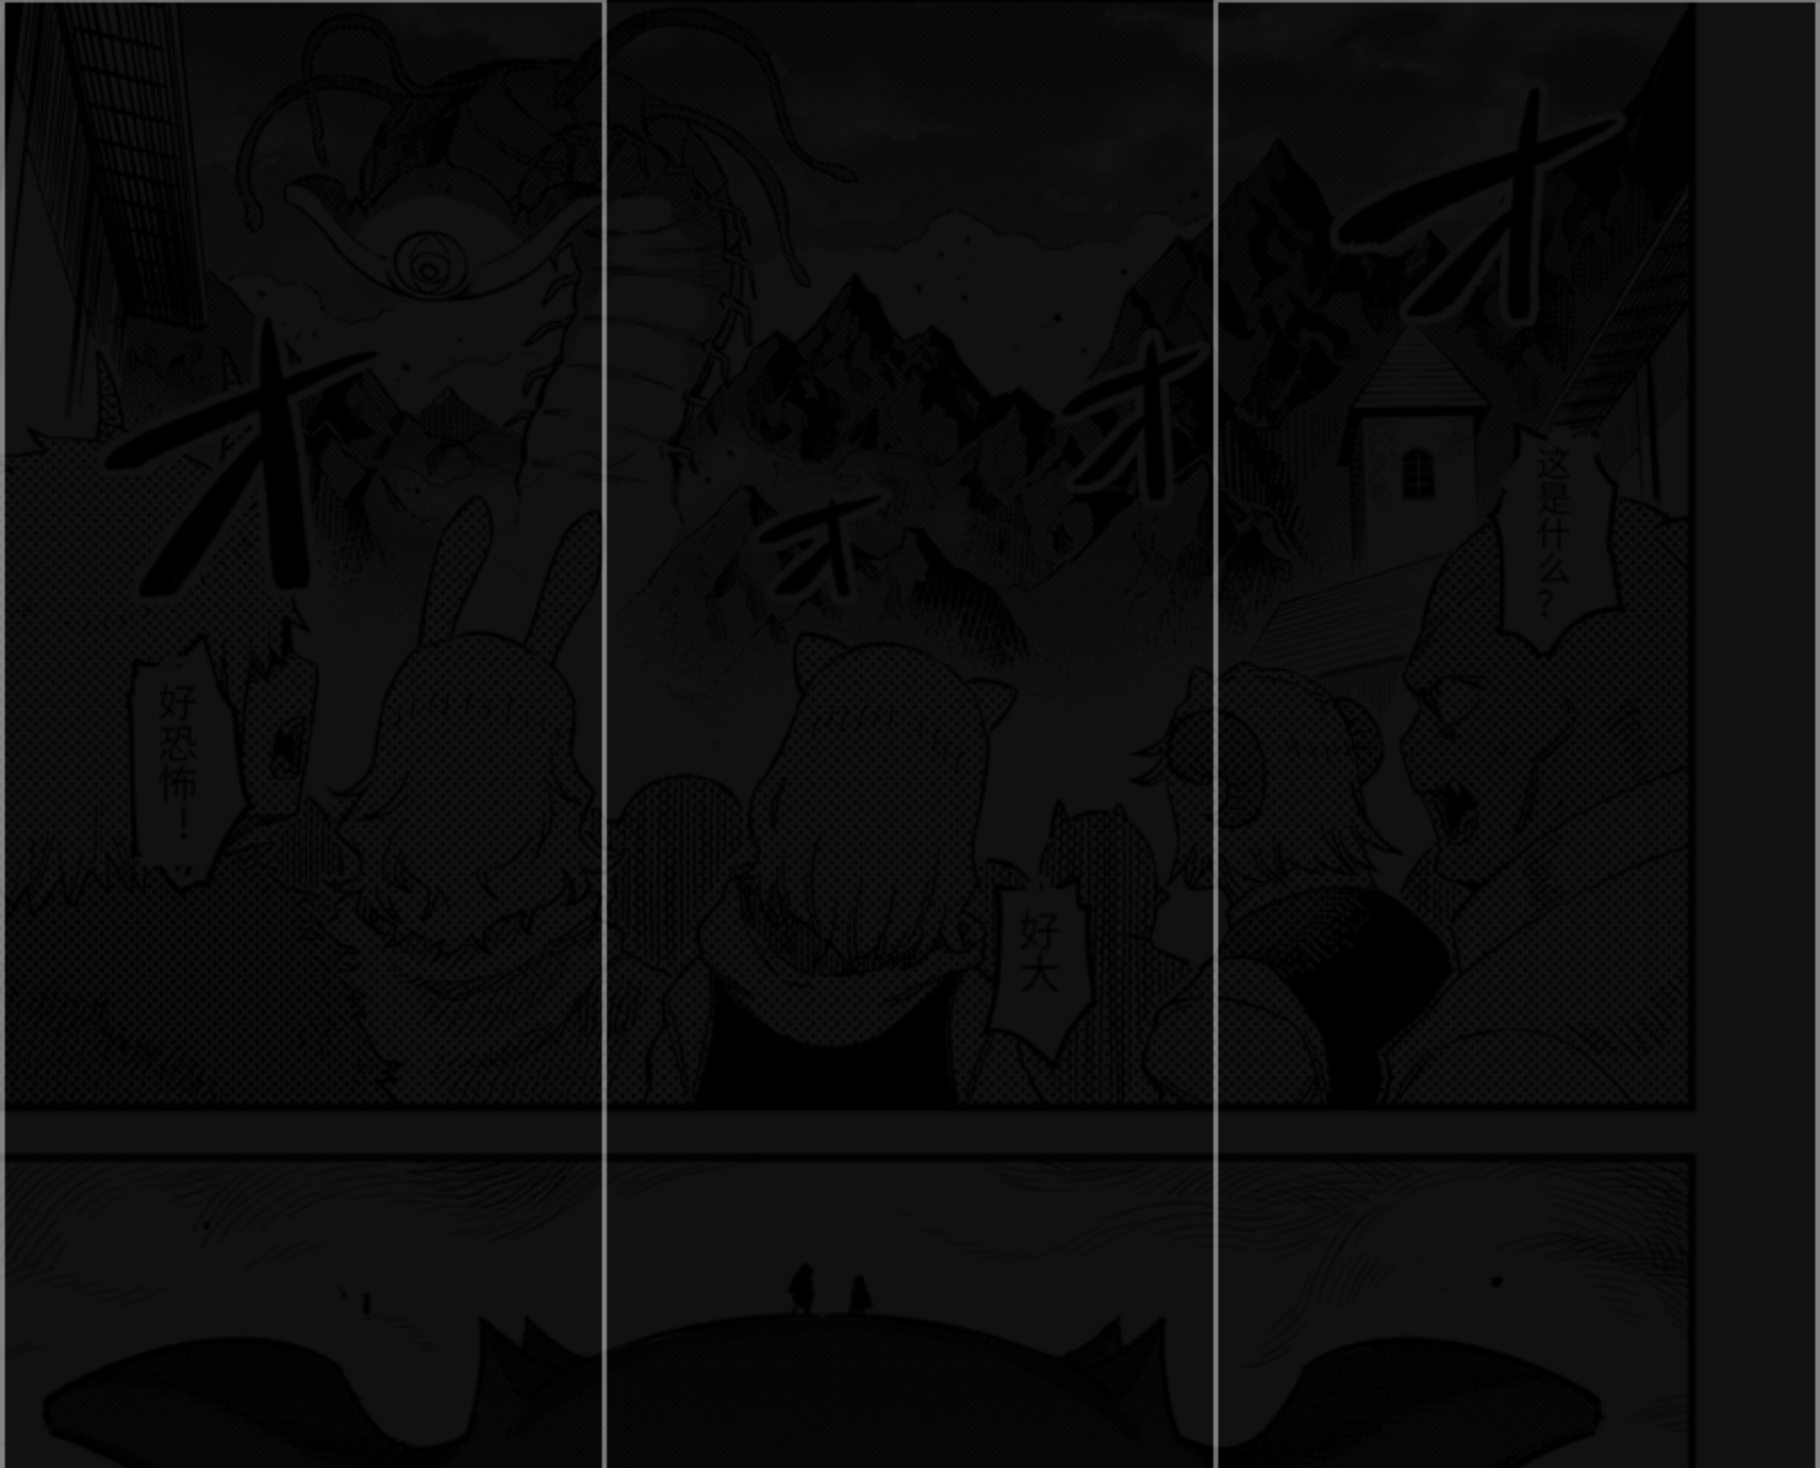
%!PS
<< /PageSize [1820 1468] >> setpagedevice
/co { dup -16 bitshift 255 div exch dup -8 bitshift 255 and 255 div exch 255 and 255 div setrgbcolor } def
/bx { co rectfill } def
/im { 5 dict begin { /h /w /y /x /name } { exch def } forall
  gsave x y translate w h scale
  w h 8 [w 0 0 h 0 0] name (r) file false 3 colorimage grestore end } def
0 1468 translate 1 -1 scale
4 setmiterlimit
0 0 1820 1468 16#FFFFFF bx
(media/1.raw) 0 0 1711 1468 im
(media/2.raw) 0 0 1820 1468 im
showpage
